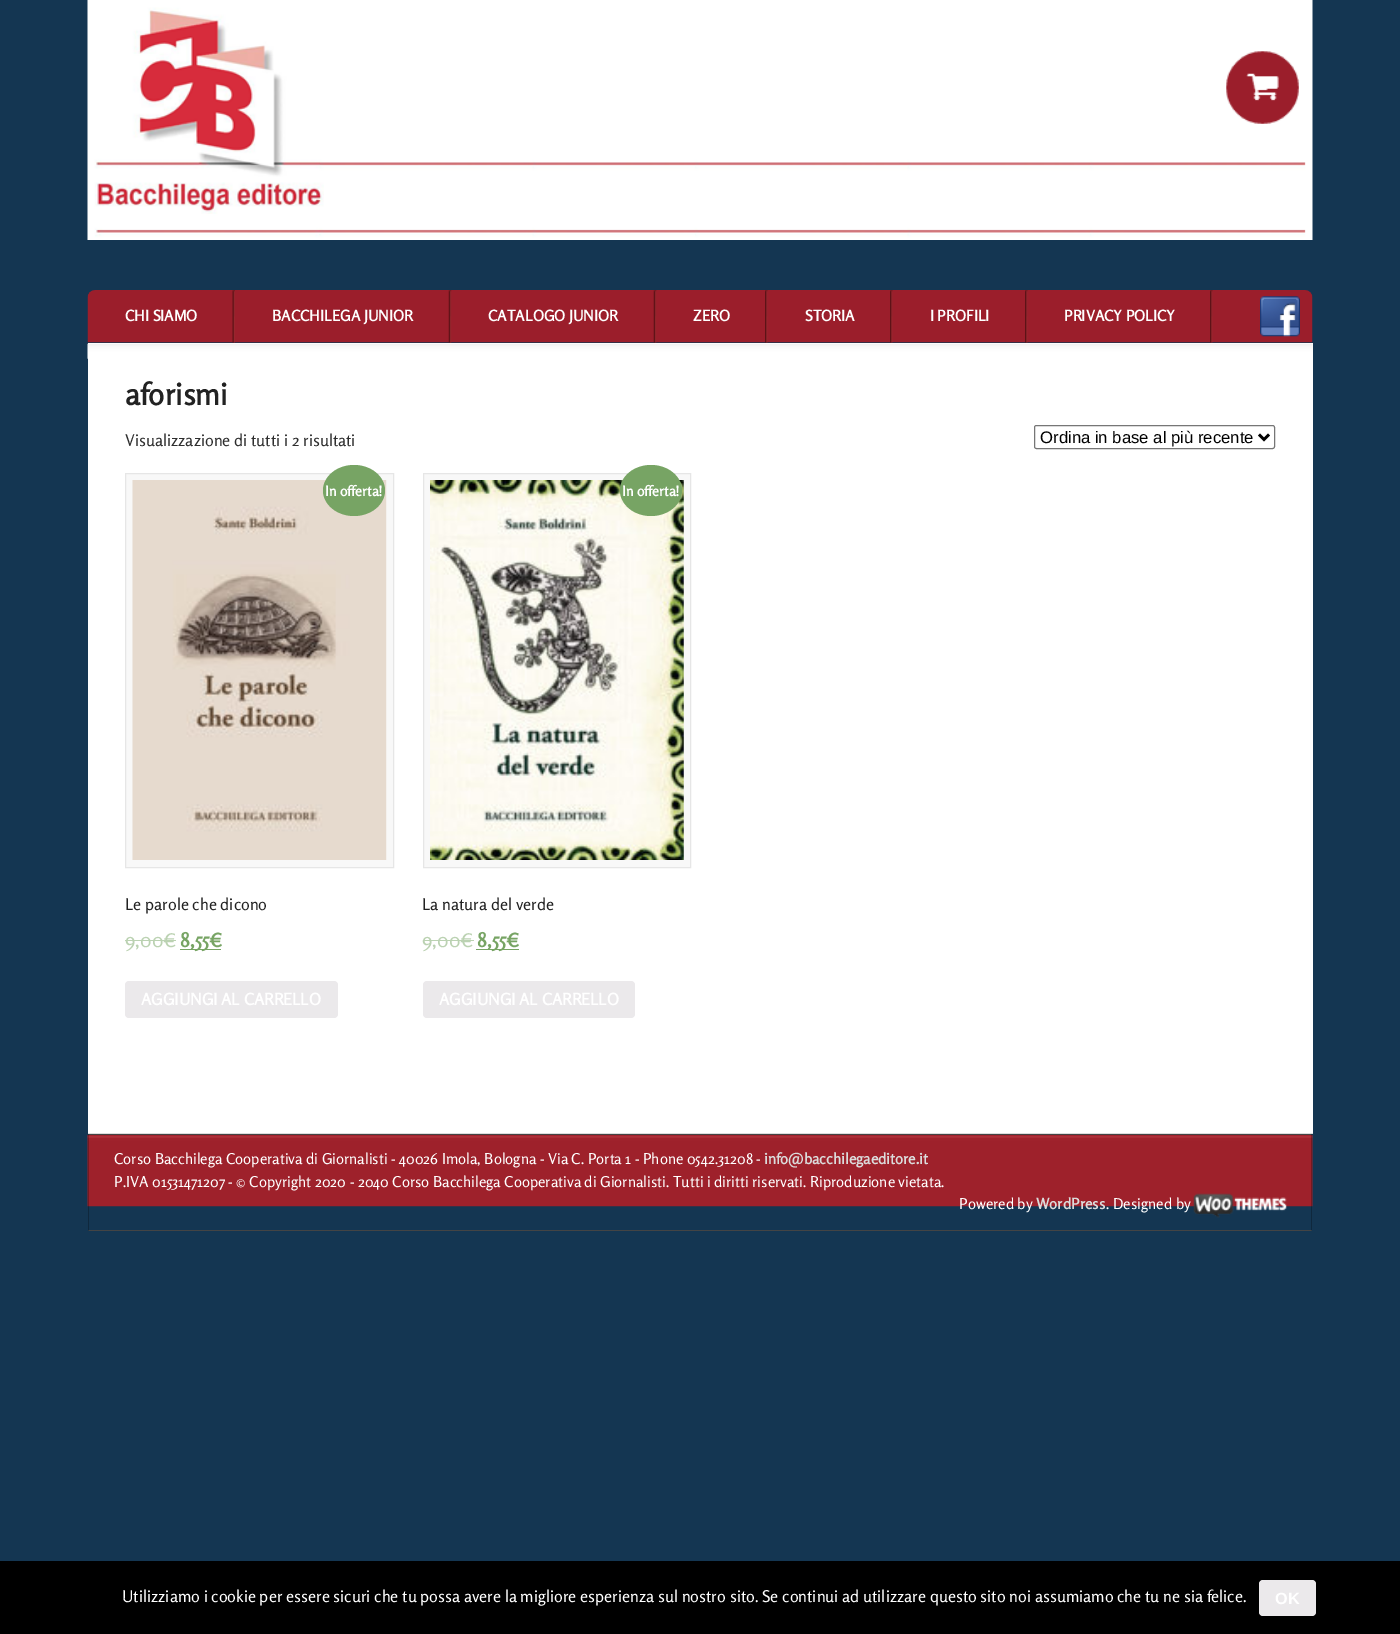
%!PS
<< /PageSize [1400 1634] /PageUsesTransparency true >> setpagedevice
/mt/moveto load def
/li/lineto load def
/ct/curveto load def
/cp/closepath load def
/fl/fill load def
/st/stroke load def
/gs/gsave load def
/gr/grestore load def
/lw/setlinewidth load def
/co { dup -16 bitshift 255 div exch dup -8 bitshift 255 and 255 div exch 255 and 255 div setrgbcolor } def
/fn { [ exch dup neg 0 0 3 -1 roll 0 0 ] selectfont } def
/tx { co fn moveto show } def
/bx { co rectfill } def
/al { dup .setfillconstantalpha .setstrokeconstantalpha } def
/rr { 5 dict begin { /r /h /w /y /x } { exch def } forall
  x r add y moveto x w add y 2 copy h add r arct x w add y h add x 1 index r arct
  x y h add x y r arct x y 2 copy exch w add exch r arct closepath end } def
/im { 5 dict begin { /h /w /y /x /name } { exch def } forall
  gsave x y translate w h scale
  w h 8 [w 0 0 h 0 0] name (r) file false 3 colorimage grestore end } def
0 .pushpdf14devicefilter
0 1634 translate 1 -1 scale
4 setmiterlimit
0 0 1400 1634 16#143652 bx
(media/1.raw) 87 0 1226 240 im
(media/2.raw) 1226 51 73 73 im
(media/3.raw) 87 290 1226 53 im
(media/4.raw) 232 290 3 53 im
(media/5.raw) 448 290 4 53 im
(media/5.raw) 653 290 4 53 im
(media/6.raw) 765 290 3 53 im
(media/6.raw) 890 290 3 53 im
(media/6.raw) 1025 290 3 53 im
(media/6.raw) 1210 290 3 53 im
(media/7.raw) 1260 296 40 41 im
88 343 1225 790 16#FFFFFF bx
(media/8.raw) 87 343 1226 16 im
88 1133 1225 1 16#DDDDDD bx
16#767676 co
1034.5 425.5 240 23 2 rr st
16#000000 co
2.5 lw
1259 434.5 mt 1264 439.5 li 1269 434.5 li st
16#F8F8F8 co
125.5 473.5 mt 393.5 473.5 li 393.5 867.5 li 125.5 867.5 li cp gs fl gr
16#E6E6E6 co
1 lw
st
(media/9.raw) 132 480 255 380 im
16#77A464 co
354 465 mt 371 465 385 476.5 385 490.5 ct 385 504.5 371 516 354 516 ct 337 516 323 504.5 323 490.5 ct 323 476.5 337 465 354 465 ct cp fl
125 940 51 1 16#BBD2B2 bx
180 949 41 1 16#77A464 bx
16#EBE9EB co
125 981 213 37 4 rr fl
16#F8F8F8 co
423.5 473.5 mt 690.5 473.5 li 690.5 867.5 li 423.5 867.5 li cp gs fl gr
16#E6E6E6 co
st
(media/10.raw) 430 480 254 380 im
16#77A464 co
651 465 mt 668 465 682 476.5 682 490.5 ct 682 504.5 668 516 651 516 ct 634 516 620 504.5 620 490.5 ct 620 476.5 634 465 651 465 ct cp fl
423 940 51 1 16#BBD2B2 bx
476 949 43 1 16#77A464 bx
16#EBE9EB co
423 981 212 37 4 rr fl
(media/11.raw) 87 1135 1226 72 im
16#444444 co
88 1134 mt 1312 1134 li 1311 1135 li 89 1135 li cp fl
0.25 al
16#000000 co
1312 1134 mt 1312 1231 li 1311 1230 li 1311 1135 li cp fl
1 al
16#444444 co
1312 1231 mt 88 1231 li 89 1230 li 1311 1230 li cp fl
0.25 al
16#000000 co
88 1231 mt 88 1134 li 89 1135 li 89 1230 li cp fl
1 al
(media/12.raw) 1193 1193 94 25 im
0 1561 1400 73 16#000000 bx
16#EBE9EB co
1259 1580 57 36 4 rr fl
(CHI SIAMO) 125 321 /Rosario-Bold 15 16#FFFFFF tx
(BACCHILEGA JUNIOR) 272 321 /Rosario-Bold 15 16#FFFFFF tx
(CATALOGO JUNIOR) 488 321 /Rosario-Bold 15 16#FFFFFF tx
(ZERO) 693 321 /Rosario-Bold 15 16#FFFFFF tx
(STORIA) 805 321 /Rosario-Bold 15 16#FFFFFF tx
(I PROFILI) 930 321 /Rosario-Bold 15 16#FFFFFF tx
(PRIVACY POLICY) 1064 321 /Rosario-Bold 15 16#FFFFFF tx
(aforismi) 125 405 /Rosario-Bold 30 16#222222 tx
(Visualizzazione di tutti i 2 risultati) 125 446 /Rosario-Regular 16.25 16#2E2E2E tx
(Ordina in base al più recente) 1040 443 /LiberationSans-Regular 16.7 16#000000 tx
(In offerta!) 325 496 /Rosario-Bold 14 16#FFFFFF tx
(Le parole che dicono) 125 910 /Rosario-Regular 16.25 16#222222 tx
(9,00€) 125 947 /Rosario-Regular 20 16#BBD2B2 tx
(8,55€) 180 947 /Rosario-Bold 20 16#77A464 tx
(AGGIUNGI AL CARRELLO) 141 1005 /Rosario-Bold 16.25 16#FFFFFF tx
(In offerta!) 622 496 /Rosario-Bold 14 16#FFFFFF tx
(La natura del verde) 422 910 /Rosario-Regular 16.25 16#222222 tx
(9,00€) 422 947 /Rosario-Regular 20 16#BBD2B2 tx
(8,55€) 477 947 /Rosario-Bold 20 16#77A464 tx
(AGGIUNGI AL CARRELLO) 439 1005 /Rosario-Bold 16.25 16#FFFFFF tx
(Corso Bacchilega Cooperativa di Giornalisti - 40026 Imola, Bologna - Via C. Porta 1 - Phone 0542.31208 -) 114 1164 /Rosario-Regular 15 16#FFFFFF tx
(info@bacchilegaeditore.it) 764 1164 /Rosario-Bold 15 16#DBDBDB tx
(P.IVA 01531471207 - © Copyright 2020 - 2040 Corso Bacchilega Cooperativa di Giornalisti. Tutti i diritti riservati. Riproduzione vietata.) 114 1187 /Rosario-Regular 15 16#FFFFFF tx
(Powered by) 959 1209 /Rosario-Regular 15 16#FFFFFF tx
(WordPress) 1036 1209 /Rosario-Bold 15 16#DBDBDB tx
(. Designed by) 1106 1209 /Rosario-Regular 15 16#FFFFFF tx
(Utilizziamo i cookie per essere sicuri che tu possa avere la migliore esperienza sul nostro sito. Se continui ad utilizzare questo sito noi assumiamo che tu ne sia felice.) 122 1602 /Rosario-Regular 16.25 16#FFFFFF tx
(OK) 1275 1604 /LiberationSans-Bold 16.25 16#FFFFFF tx
.poppdf14devicefilter showpage
